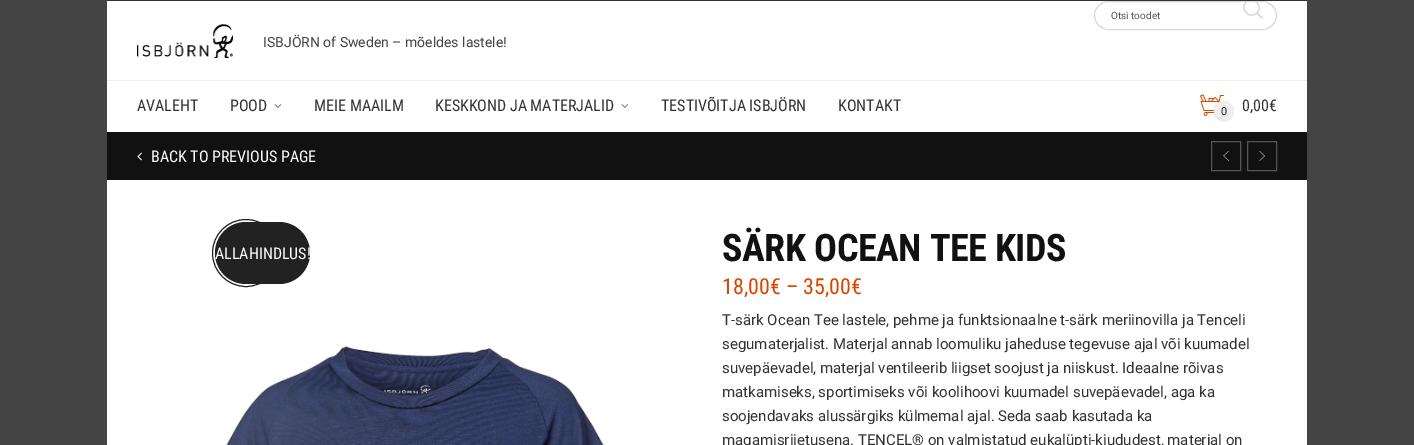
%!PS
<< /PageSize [1414 445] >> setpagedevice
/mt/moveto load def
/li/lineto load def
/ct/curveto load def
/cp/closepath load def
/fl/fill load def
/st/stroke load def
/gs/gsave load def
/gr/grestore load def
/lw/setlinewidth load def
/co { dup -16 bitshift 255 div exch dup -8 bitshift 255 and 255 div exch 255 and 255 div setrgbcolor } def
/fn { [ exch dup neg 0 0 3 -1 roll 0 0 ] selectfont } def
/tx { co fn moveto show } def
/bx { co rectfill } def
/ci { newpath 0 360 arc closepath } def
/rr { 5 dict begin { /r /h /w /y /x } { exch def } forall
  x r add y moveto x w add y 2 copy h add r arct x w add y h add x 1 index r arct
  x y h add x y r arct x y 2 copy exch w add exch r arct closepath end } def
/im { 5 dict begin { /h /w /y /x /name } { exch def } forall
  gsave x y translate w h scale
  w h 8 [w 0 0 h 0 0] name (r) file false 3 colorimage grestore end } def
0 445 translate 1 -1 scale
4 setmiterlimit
0 0 1414 445 16#444444 bx
107 1 1200 444 16#FFFFFF bx
107 0 1200 1 16#333333 bx
107 80 1200 1 16#EEEEEE bx
16#D8D8D8 co
1094.5 1.5 182 28 14 rr st
16#FFFFFF co
1240.5 29 mt 1239.5 20 1239.5 11 1241 2 ct 1262.5 2 li 1265.5 2.5 li 1266 11 1266.5 20 1265.5 28.5 ct 1262.5 29 li cp fl
gs
1095 2 181 27 13.5 rr clip newpath
16#DCDCDC co
1.5 lw
1 setlinecap
1 setlinejoin
1262 18 mt 1257 13 li 1257 13 mt 1264 6 1253 -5 1246 2 ct 1239 9 1250 20 1257 13 ct cp st
gr
(media/1.raw) 137 24 96 34 im
(media/2.raw) 274 104 8 4 im
(media/2.raw) 621 104 8 4 im
(media/3.raw) 1200 94 24 22 im
16#EEEEEE co
1214 101 20 21 10 rr fl
107 132 1200 48 16#111111 bx
(media/4.raw) 137 152 5 9 im
16#555555 co
1211.5 141.5 29 29 rectstroke
(media/5.raw) 1223 150 6 11 im
1247.5 141.5 29 29 rectstroke
(media/6.raw) 1259 150 6 11 im
16#222222 co
246 253 33.5 ci st
215 222 95 62 31 rr fl
(media/7.raw) 226 346 378 99 im
(Otsi toodet) 1111 19 /Roboto-Regular 10 16#575757 tx
(ISBJÖRN of Sweden – mõeldes lastele!) 263 47 /Roboto-Regular 14 16#444444 tx
(AVALEHT) 137 111 /RobotoCondensed-Regular 16 16#333333 tx
(POOD) 230 111 /RobotoCondensed-Regular 16 16#333333 tx
(MEIE MAAILM) 314 111 /RobotoCondensed-Regular 16 16#333333 tx
(KESKKOND JA MATERJALID) 435 111 /RobotoCondensed-Regular 16 16#333333 tx
(TESTIVÕITJA ISBJÖRN) 661 111 /RobotoCondensed-Regular 16 16#333333 tx
(KONTAKT) 838 111 /RobotoCondensed-Regular 16 16#333333 tx
(0) 1221 115 /Roboto-Regular 11 16#222222 tx
(0,00€) 1242 111 /RobotoCondensed-Regular 16 16#333333 tx
(BACK TO PREVIOUS PAGE) 151 162 /RobotoCondensed-Regular 16 16#FFFFFF tx
(ALLAHINDLUS!) 215 259 /RobotoCondensed-Regular 16 16#FFFFFF tx
/RobotoCondensed-Bold 38 fn
16#111111 co
722 261 mt -.4 0 (SÄRK OCEAN TEE KIDS) ashow
(18,00€ – 35,00€) 722 294 /RobotoCondensed-Regular 22 16#D54800 tx
(T-särk Ocean Tee lastele, pehme ja funktsionaalne t-särk meriinovilla ja Tenceli) 722 325 /Roboto-Regular 15 16#333333 tx
(segumaterjalist. Materjal annab loomuliku jaheduse tegevuse ajal või kuumadel) 722 349 /Roboto-Regular 15 16#333333 tx
(suvepäevadel, materjal ventileerib liigset soojust ja niiskust. Ideaalne rõivas) 722 373 /Roboto-Regular 15 16#333333 tx
(matkamiseks, sportimiseks või koolihoovi kuumadel suvepäevadel, aga ka) 722 397 /Roboto-Regular 15 16#333333 tx
(soojendavaks alussärgiks külmemal ajal. Seda saab kasutada ka) 722 421 /Roboto-Regular 15 16#333333 tx
(magamisriietusena. TENCEL® on valmistatud eukalüpti-kiududest, materjal on) 722 445 /Roboto-Regular 15 16#333333 tx
showpage
